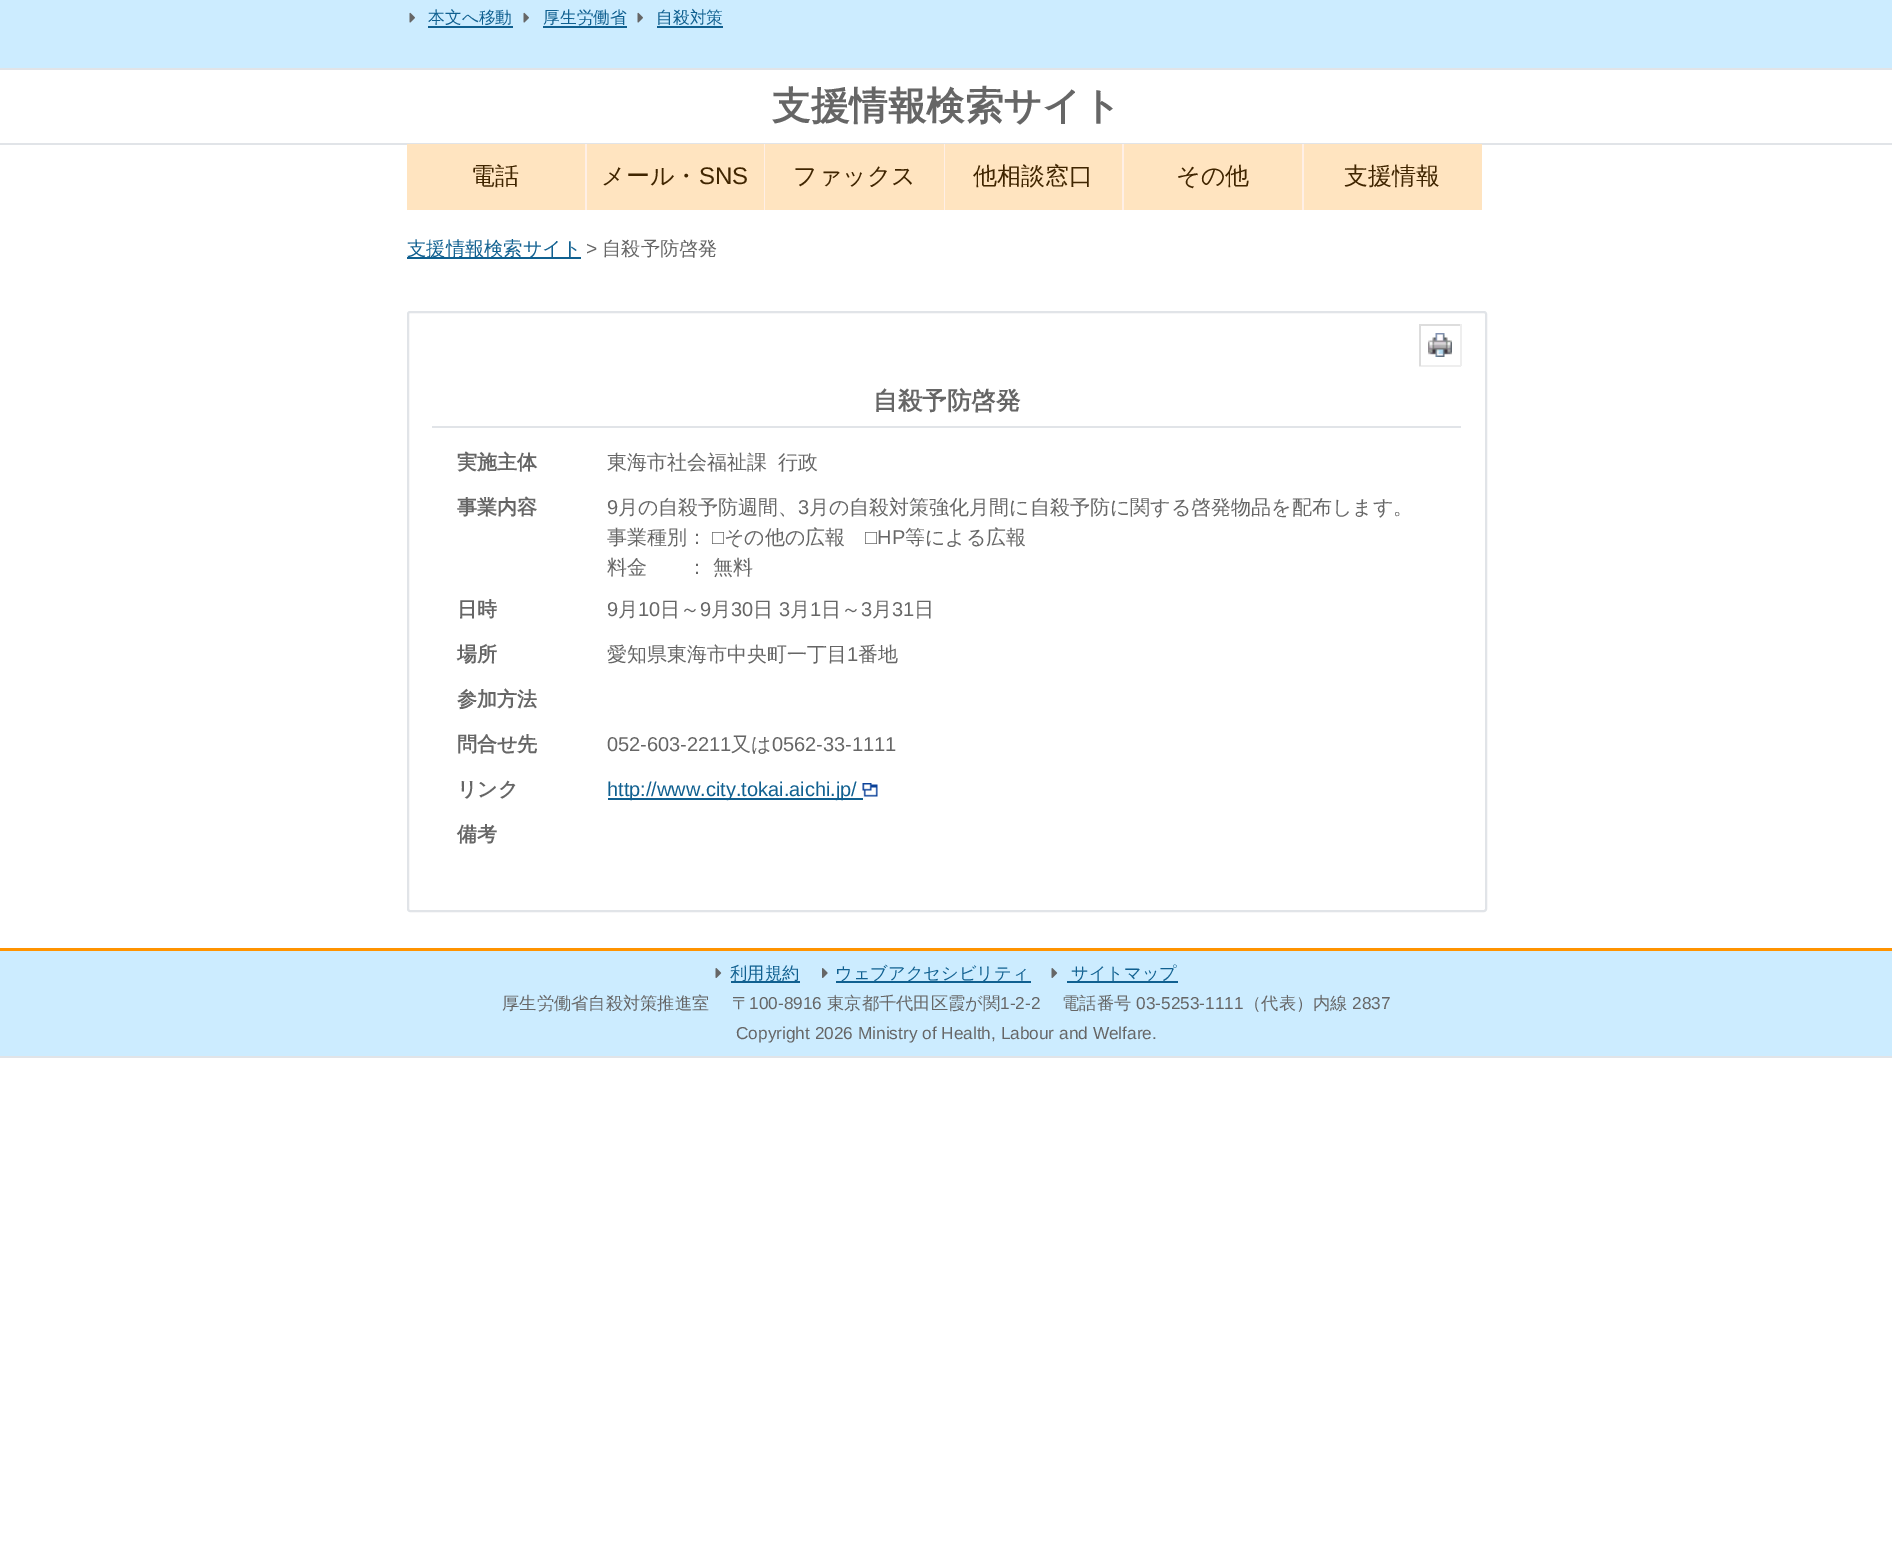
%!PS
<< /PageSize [1892 1545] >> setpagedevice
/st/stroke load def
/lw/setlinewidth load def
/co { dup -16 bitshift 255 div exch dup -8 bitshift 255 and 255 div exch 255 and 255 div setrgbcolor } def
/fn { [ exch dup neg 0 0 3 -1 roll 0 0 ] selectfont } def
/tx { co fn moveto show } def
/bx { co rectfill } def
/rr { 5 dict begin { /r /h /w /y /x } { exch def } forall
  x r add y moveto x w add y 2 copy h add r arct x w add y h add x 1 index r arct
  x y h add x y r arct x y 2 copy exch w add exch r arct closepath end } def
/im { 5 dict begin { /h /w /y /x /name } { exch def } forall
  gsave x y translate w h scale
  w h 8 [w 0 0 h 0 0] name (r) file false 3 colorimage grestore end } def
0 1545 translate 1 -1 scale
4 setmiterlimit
0 0 1892 1545 16#FFFFFF bx
0 0 1892 68 16#CCECFF bx
0 68 1892 2 16#E1E4E8 bx
(media/1.raw) 409 12 6 11 im
428 26 85 2 16#106090 bx
(media/1.raw) 523 12 6 11 im
543 26 84 2 16#106090 bx
(media/1.raw) 637 12 6 11 im
657 26 66 2 16#106090 bx
0 143 1892 2 16#E1E4E8 bx
407 144 178 66 16#FFE4C0 bx
585 144 2 66 16#FFEFE6 bx
587 144 177 66 16#FFE4C0 bx
764 144 1 66 16#FFEFE6 bx
765 144 179 66 16#FFE4C0 bx
944 144 1 66 16#FFEFE6 bx
945 144 177 66 16#FFE4C0 bx
1122 144 2 66 16#FFEFE6 bx
1124 144 178 66 16#FFE4C0 bx
1302 144 2 66 16#FFEFE6 bx
1304 144 178 66 16#FFE4C0 bx
407 257 174 2 16#106090 bx
16#E1E4E8 co
2 lw
408 312 1078 599 2 rr st
1419 324 42 2 16#DDDDDD bx
1460 324 2 42 16#EEEEEE bx
1419 365 42 2 16#EEEEEE bx
1419 324 2 42 16#DDDDDD bx
(media/2.raw) 1428 333 24 24 im
432 426 1029 2 16#E1E4E8 bx
608 798 255 2 16#106090 bx
(media/3.raw) 862 783 16 14 im
0 951 1892 105 16#CCECFF bx
0 1056 1892 2 16#E1E4E8 bx
0 948 1892 3 16#FF9300 bx
(media/4.raw) 715 968 7 10 im
731 981 69 2 16#106090 bx
(media/5.raw) 822 968 6 10 im
836 981 195 2 16#106090 bx
(media/4.raw) 1051 968 7 10 im
1067 981 111 2 16#106090 bx
(本文へ移動) 428 23 /WenQuanYiZenHei-Medium 16.75 16#106090 tx
(厚生労働省) 543 23 /WenQuanYiZenHei-Medium 16.75 16#106090 tx
(自殺対策) 656 23 /WenQuanYiZenHei-Medium 16.75 16#106090 tx
(支援情報検索サイト) 772 119 /WenQuanYiZenHei-Bold 38.5 16#666666 tx
(電話) 471 184 /WenQuanYiZenHei-Medium 24 16#402500 tx
(メール・) 601 184 /WenQuanYiZenHei-Medium 24 16#402500 tx
(SNS) 699 184 /LiberationSans-Regular 24 16#402500 tx
(ファックス) 793 184 /WenQuanYiZenHei-Medium 24 16#402500 tx
(他相談窓口) 973 184 /WenQuanYiZenHei-Medium 24 16#402500 tx
(その他) 1176 184 /WenQuanYiZenHei-Medium 24 16#402500 tx
(支援情報) 1344 184 /WenQuanYiZenHei-Medium 24 16#402500 tx
(支援情報検索サイト) 407 255 /WenQuanYiZenHei-Medium 19.25 16#106090 tx
(>) 586 255 /LiberationSans-Regular 19.25 16#666666 tx
(自殺予防啓発) 602 255 /WenQuanYiZenHei-Medium 19.25 16#666666 tx
(自殺予防啓発) 873 409 /WenQuanYiZenHei-Bold 24.5 16#666666 tx
(実施主体) 457 469 /WenQuanYiZenHei-Bold 20 16#666666 tx
(東海市社会福祉課) 607 469 /WenQuanYiZenHei-Medium 20 16#666666 tx
(行政) 778 469 /WenQuanYiZenHei-Medium 20 16#666666 tx
(事業内容) 457 514 /WenQuanYiZenHei-Bold 20 16#666666 tx
(9) 607 514 /LiberationSans-Regular 20 16#666666 tx
(月の自殺予防週間、) 618 514 /WenQuanYiZenHei-Medium 20 16#666666 tx
(3) 798 514 /LiberationSans-Regular 20 16#666666 tx
(月の自殺対策強化月間に自殺予防に関する啓発物品を配布します。) 809 514 /WenQuanYiZenHei-Medium 20 16#666666 tx
(事業種別：) 607 544 /WenQuanYiZenHei-Medium 20 16#666666 tx
(□) 712 544 /LiberationSans-Regular 20 16#666666 tx
(その他の広報) 724 544 /WenQuanYiZenHei-Medium 20 16#666666 tx
(□HP) 865 544 /LiberationSans-Regular 20 16#666666 tx
(等による広報) 905 544 /WenQuanYiZenHei-Medium 20 16#666666 tx
(料金) 607 574 /WenQuanYiZenHei-Medium 20 16#666666 tx
(： 無料) 687 574 /WenQuanYiZenHei-Medium 20 16#666666 tx
(日時) 457 616 /WenQuanYiZenHei-Bold 20 16#666666 tx
(9) 607 616 /LiberationSans-Regular 20 16#666666 tx
(月) 618 616 /WenQuanYiZenHei-Medium 20 16#666666 tx
(10) 638 616 /LiberationSans-Regular 20 16#666666 tx
(日～) 660 616 /WenQuanYiZenHei-Medium 20 16#666666 tx
(9) 700 616 /LiberationSans-Regular 20 16#666666 tx
(月) 711 616 /WenQuanYiZenHei-Medium 20 16#666666 tx
(30) 731 616 /LiberationSans-Regular 20 16#666666 tx
(日) 753 616 /WenQuanYiZenHei-Medium 20 16#666666 tx
(3) 779 616 /LiberationSans-Regular 20 16#666666 tx
(月) 790 616 /WenQuanYiZenHei-Medium 20 16#666666 tx
(1) 810 616 /LiberationSans-Regular 20 16#666666 tx
(日～) 821 616 /WenQuanYiZenHei-Medium 20 16#666666 tx
(3) 861 616 /LiberationSans-Regular 20 16#666666 tx
(月) 872 616 /WenQuanYiZenHei-Medium 20 16#666666 tx
(31) 892 616 /LiberationSans-Regular 20 16#666666 tx
(日) 914 616 /WenQuanYiZenHei-Medium 20 16#666666 tx
(場所) 457 661 /WenQuanYiZenHei-Bold 20 16#666666 tx
(愛知県東海市中央町一丁目) 607 661 /WenQuanYiZenHei-Medium 20 16#666666 tx
(1) 847 661 /LiberationSans-Regular 20 16#666666 tx
(番地) 858 661 /WenQuanYiZenHei-Medium 20 16#666666 tx
(参加方法) 457 706 /WenQuanYiZenHei-Bold 20 16#666666 tx
(問合せ先) 457 751 /WenQuanYiZenHei-Bold 20 16#666666 tx
(052-603-2211) 607 751 /LiberationSans-Regular 20 16#666666 tx
(又は) 731 751 /WenQuanYiZenHei-Medium 20 16#666666 tx
(0562-33-1111) 772 751 /LiberationSans-Regular 20 16#666666 tx
(リンク) 457 796 /WenQuanYiZenHei-Bold 20 16#666666 tx
(http://www.city.tokai.aichi.jp/) 607 796 /LiberationSans-Regular 20 16#106090 tx
(備考) 457 841 /WenQuanYiZenHei-Bold 20 16#666666 tx
(利用規約) 730 979 /WenQuanYiZenHei-Medium 17.25 16#106090 tx
(ウェブアクセシビリティ) 835 979 /WenQuanYiZenHei-Medium 17.25 16#106090 tx
(サイトマップ) 1071 979 /WenQuanYiZenHei-Medium 17.25 16#106090 tx
(厚生労働省自殺対策推進室) 502 1009 /WenQuanYiZenHei-Medium 17.25 16#666666 tx
(〒) 732 1009 /WenQuanYiZenHei-Medium 17.25 16#666666 tx
(100-8916) 749 1009 /LiberationSans-Regular 17.25 16#666666 tx
(東京都千代田区霞が関) 827 1009 /WenQuanYiZenHei-Medium 17.25 16#666666 tx
(1-2-2) 1000 1009 /LiberationSans-Regular 17.25 16#666666 tx
(電話番号) 1062 1009 /WenQuanYiZenHei-Medium 17.25 16#666666 tx
(03-5253-1111) 1136 1009 /LiberationSans-Regular 17.25 16#666666 tx
(（代表）内線) 1244 1009 /WenQuanYiZenHei-Medium 17.25 16#666666 tx
(2837) 1352 1009 /LiberationSans-Regular 17.25 16#666666 tx
(Copyright 2026 Ministry of Health, Labour and Welfare.) 736 1039 /LiberationSans-Regular 17.25 16#666666 tx
showpage
